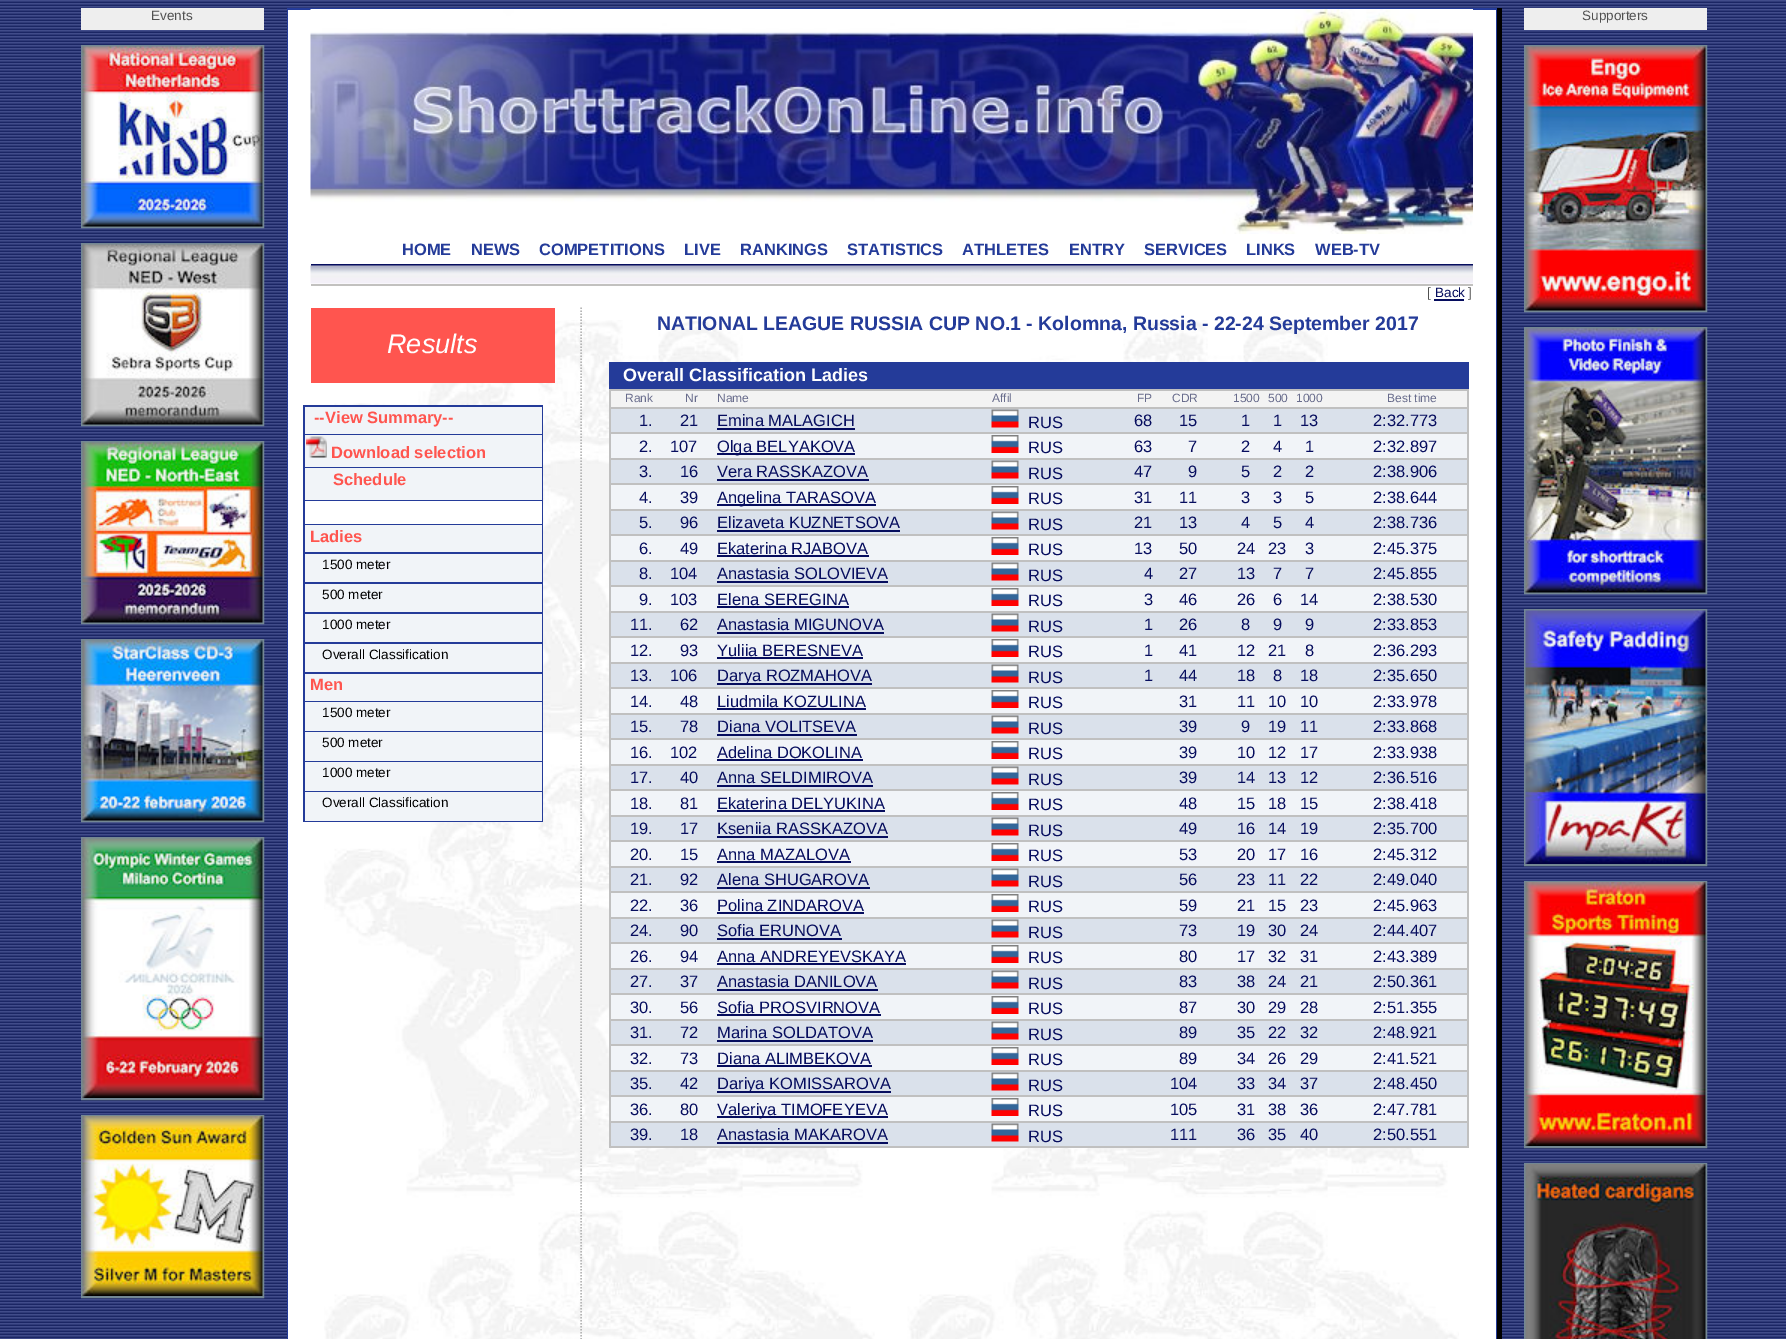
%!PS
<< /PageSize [1786 1339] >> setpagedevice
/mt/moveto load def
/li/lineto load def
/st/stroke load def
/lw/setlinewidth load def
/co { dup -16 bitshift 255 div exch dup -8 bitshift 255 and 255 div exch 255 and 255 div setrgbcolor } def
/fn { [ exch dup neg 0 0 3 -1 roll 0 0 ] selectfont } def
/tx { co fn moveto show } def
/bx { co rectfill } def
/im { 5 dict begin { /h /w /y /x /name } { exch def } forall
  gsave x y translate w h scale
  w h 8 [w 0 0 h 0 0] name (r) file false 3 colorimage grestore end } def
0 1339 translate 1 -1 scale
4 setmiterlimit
0 0 1786 1339 16#FFFFFF bx
(media/1.raw) 0 0 1786 1339 im
81 8 183 22 16#EEEEEE bx
16#738793 co
2 lw
82 46 181 181 rectstroke
(media/2.raw) 82 46 181 181 im
82 244 181 181 rectstroke
(media/3.raw) 82 244 181 181 im
82 442 181 181 rectstroke
(media/4.raw) 82 442 181 181 im
82 640 181 181 rectstroke
(media/5.raw) 82 640 181 181 im
82 838 181 261 rectstroke
(media/6.raw) 82 838 181 260 im
82 1116 181 181 rectstroke
(media/7.raw) 82 1116 181 180 im
287 8 1 1331 16#243B99 bx
288 10 23 1329 16#FFFFFF bx
288 8 23 2 16#243B99 bx
1473 10 23 1329 16#FFFFFF bx
1473 8 23 2 16#243B99 bx
1496 8 1 1331 16#243B99 bx
1497 8 5 1331 16#000000 bx
1524 8 183 22 16#EEEEEE bx
16#738793 co
1525 46 181 265 rectstroke
(media/8.raw) 1525 46 181 265 im
1525 328 181 265 rectstroke
(media/9.raw) 1525 328 181 265 im
1525 610 181 255 rectstroke
(media/10.raw) 1525 610 181 254 im
1525 882 181 265 rectstroke
(media/11.raw) 1525 882 181 264 im
1525 1164 181 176 rectstroke
(media/12.raw) 1525 1164 181 175 im
311 234 1162 1105 16#FFFFFF bx
311 8 1162 1 16#243B99 bx
(media/13.raw) 310 9 1163 225 im
311 264 1162 2 16#060D5E bx
311 284 1162 2 16#C2C1BF bx
(media/14.raw) 310 265 1163 19 im
1434 299 30 2 16#060D5E bx
(media/15.raw) 324 320 1135 1019 im
311 308 244 75 16#FF554F bx
16#B5B5B5 co
1.5 lw
[1.5 1.5] 0 setdash
581 307.5 mt 581 1170 li st
609 362 860 27 16#243B99 bx
609 389 860 2 16#C0C0C0 bx
1467 389 2 759 16#C0C0C0 bx
609 1146 860 2 16#C0C0C0 bx
609 389 2 759 16#C0C0C0 bx
611 391 856 16 16#F3F3F3 bx
609 407 860 2 16#C0C0C0 bx
611 409 856 23 16#DAE1EB bx
717 428 138 2 16#060D5E bx
(media/16.raw) 991 409 28 19 im
611 434 856 24 16#F1F4F8 bx
609 432 860 2 16#C0C0C0 bx
717 453 138 2 16#060D5E bx
(media/17.raw) 991 435 28 18 im
611 460 856 23 16#DAE1EB bx
609 458 860 2 16#C0C0C0 bx
717 479 152 2 16#060D5E bx
(media/16.raw) 991 460 28 19 im
611 485 856 24 16#F1F4F8 bx
609 483 860 2 16#C0C0C0 bx
717 504 159 2 16#060D5E bx
(media/17.raw) 991 486 28 18 im
611 511 856 23 16#DAE1EB bx
609 509 860 2 16#C0C0C0 bx
717 530 183 2 16#060D5E bx
(media/16.raw) 991 511 28 19 im
611 536 856 24 16#F1F4F8 bx
609 534 860 2 16#C0C0C0 bx
717 555 152 2 16#060D5E bx
(media/17.raw) 991 537 28 18 im
611 562 856 23 16#DAE1EB bx
609 560 860 2 16#C0C0C0 bx
717 581 171 2 16#060D5E bx
(media/16.raw) 991 562 28 19 im
611 587 856 24 16#F1F4F8 bx
609 585 860 2 16#C0C0C0 bx
717 606 132 2 16#060D5E bx
(media/17.raw) 991 588 28 18 im
611 613 856 23 16#DAE1EB bx
609 611 860 2 16#C0C0C0 bx
717 632 167 2 16#060D5E bx
(media/16.raw) 991 613 28 19 im
611 638 856 24 16#F1F4F8 bx
609 636 860 2 16#C0C0C0 bx
717 657 146 2 16#060D5E bx
(media/17.raw) 991 639 28 18 im
611 664 856 23 16#DAE1EB bx
609 662 860 2 16#C0C0C0 bx
717 683 155 2 16#060D5E bx
(media/16.raw) 991 664 28 19 im
611 689 856 24 16#F1F4F8 bx
609 687 860 2 16#C0C0C0 bx
717 708 149 2 16#060D5E bx
(media/17.raw) 991 690 28 18 im
611 715 856 23 16#DAE1EB bx
609 713 860 2 16#C0C0C0 bx
717 734 140 2 16#060D5E bx
(media/16.raw) 991 715 28 19 im
611 740 856 24 16#F1F4F8 bx
609 738 860 2 16#C0C0C0 bx
717 759 146 2 16#060D5E bx
(media/17.raw) 991 741 28 18 im
611 766 856 23 16#DAE1EB bx
609 764 860 2 16#C0C0C0 bx
717 785 156 2 16#060D5E bx
(media/16.raw) 991 766 28 19 im
611 791 856 24 16#F1F4F8 bx
609 789 860 2 16#C0C0C0 bx
717 810 168 2 16#060D5E bx
(media/17.raw) 991 792 28 18 im
611 817 856 23 16#DAE1EB bx
609 815 860 2 16#C0C0C0 bx
717 836 171 2 16#060D5E bx
(media/16.raw) 991 817 28 19 im
611 842 856 24 16#F1F4F8 bx
609 840 860 2 16#C0C0C0 bx
717 861 134 2 16#060D5E bx
(media/17.raw) 991 843 28 18 im
611 868 856 23 16#DAE1EB bx
609 866 860 2 16#C0C0C0 bx
717 887 153 2 16#060D5E bx
(media/16.raw) 991 868 28 19 im
611 893 856 24 16#F1F4F8 bx
609 891 860 2 16#C0C0C0 bx
717 912 147 2 16#060D5E bx
(media/17.raw) 991 894 28 18 im
611 919 856 23 16#DAE1EB bx
609 917 860 2 16#C0C0C0 bx
717 938 125 2 16#060D5E bx
(media/16.raw) 991 919 28 19 im
611 944 856 24 16#F1F4F8 bx
609 942 860 2 16#C0C0C0 bx
717 963 189 2 16#060D5E bx
(media/17.raw) 991 945 28 18 im
611 970 856 23 16#DAE1EB bx
609 968 860 2 16#C0C0C0 bx
717 989 161 2 16#060D5E bx
(media/16.raw) 991 970 28 19 im
611 995 856 24 16#F1F4F8 bx
609 993 860 2 16#C0C0C0 bx
717 1014 164 2 16#060D5E bx
(media/17.raw) 991 996 28 18 im
611 1021 856 23 16#DAE1EB bx
609 1019 860 2 16#C0C0C0 bx
717 1040 156 2 16#060D5E bx
(media/16.raw) 991 1021 28 19 im
611 1046 856 24 16#F1F4F8 bx
609 1044 860 2 16#C0C0C0 bx
717 1065 155 2 16#060D5E bx
(media/17.raw) 991 1047 28 18 im
611 1072 856 23 16#DAE1EB bx
609 1070 860 2 16#C0C0C0 bx
717 1091 174 2 16#060D5E bx
(media/16.raw) 991 1072 28 19 im
611 1097 856 24 16#F1F4F8 bx
609 1095 860 2 16#C0C0C0 bx
717 1116 171 2 16#060D5E bx
(media/17.raw) 991 1098 28 18 im
611 1123 856 23 16#DAE1EB bx
609 1121 860 2 16#C0C0C0 bx
717 1142 171 2 16#060D5E bx
(media/16.raw) 991 1123 28 19 im
16#B5B5B5 co
581 1170 mt 581 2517 li st
303 405 240 417 16#243B99 bx
305 407 237 27 16#F1F4F8 bx
305 435 237 32 16#F1F4F8 bx
(media/18.raw) 306 436 21 22 im
305 468 237 32 16#F1F4F8 bx
305 501 237 23 16#FFFFFF bx
305 525 237 27 16#F1F4F8 bx
305 554 237 28 16#F1F4F8 bx
305 584 237 28 16#F1F4F8 bx
305 614 237 28 16#F1F4F8 bx
305 644 237 28 16#F1F4F8 bx
305 674 237 27 16#F1F4F8 bx
305 702 237 29 16#F1F4F8 bx
305 732 237 29 16#F1F4F8 bx
305 762 237 29 16#F1F4F8 bx
305 792 237 29 16#F1F4F8 bx
(Events) 151 20 /LiberationSans-Regular 13.5 16#505050 tx
(Supporters) 1582 20 /LiberationSans-Regular 13.5 16#505050 tx
(HOME) 402 255 /LiberationSans-Bold 16.5 16#243B99 tx
(NEWS) 471 255 /LiberationSans-Bold 16.5 16#243B99 tx
(COMPETITIONS) 539 255 /LiberationSans-Bold 16.5 16#243B99 tx
(LIVE) 684 255 /LiberationSans-Bold 16.5 16#243B99 tx
(RANKINGS) 740 255 /LiberationSans-Bold 16.5 16#243B99 tx
(STATISTICS) 847 255 /LiberationSans-Bold 16.5 16#243B99 tx
(ATHLETES) 962 255 /LiberationSans-Bold 16.5 16#243B99 tx
(ENTRY) 1069 255 /LiberationSans-Bold 16.5 16#243B99 tx
(SERVICES) 1144 255 /LiberationSans-Bold 16.5 16#243B99 tx
(LINKS) 1246 255 /LiberationSans-Bold 16.5 16#243B99 tx
(WEB-TV) 1315 255 /LiberationSans-Bold 16.5 16#243B99 tx
([) 1427 297 /LiberationSans-Regular 13.5 16#505050 tx
(Back) 1435 297 /LiberationSans-Regular 13.5 16#060D5E tx
(]) 1468 297 /LiberationSans-Regular 13.5 16#505050 tx
(Results) 387 353 /LiberationSans-Italic 27 16#FFFFFF tx
(NATIONAL LEAGUE RUSSIA CUP NO.1 - Kolomna, Russia - 22-24 September 2017) 657 330 /LiberationSans-Bold 19.5 16#243B99 tx
(Overall Classification Ladies) 623 381 /LiberationSans-Bold 18 16#FFFFFF tx
(Rank) 625 402 /LiberationSans-Regular 12 16#686C8C tx
(Nr) 685 402 /LiberationSans-Regular 12 16#686C8C tx
(Name) 717 402 /LiberationSans-Regular 12 16#686C8C tx
(Affil) 992 402 /LiberationSans-Regular 12 16#686C8C tx
(FP) 1137 402 /LiberationSans-Regular 12 16#686C8C tx
(CDR) 1172 402 /LiberationSans-Regular 12 16#686C8C tx
(1500) 1233 402 /LiberationSans-Regular 12 16#686C8C tx
(500) 1268 402 /LiberationSans-Regular 12 16#686C8C tx
(1000) 1296 402 /LiberationSans-Regular 12 16#686C8C tx
(Best time) 1387 402 /LiberationSans-Regular 12 16#686C8C tx
(1.) 639 426 /LiberationSans-Regular 16.5 16#060D5E tx
(21) 680 426 /LiberationSans-Regular 16.5 16#060D5E tx
(Emina MALAGICH) 717 426 /LiberationSans-Regular 16.5 16#060D5E tx
(RUS) 1028 428 /LiberationSans-Regular 16.5 16#060D5E tx
(68) 1134 426 /LiberationSans-Regular 16.5 16#060D5E tx
(15) 1179 426 /LiberationSans-Regular 16.5 16#060D5E tx
(1) 1241 426 /LiberationSans-Regular 16.5 16#060D5E tx
(1) 1273 426 /LiberationSans-Regular 16.5 16#060D5E tx
(13) 1300 426 /LiberationSans-Regular 16.5 16#060D5E tx
(2:32.773) 1373 426 /LiberationSans-Regular 16.5 16#060D5E tx
(2.) 639 452 /LiberationSans-Regular 16.5 16#060D5E tx
(107) 670 452 /LiberationSans-Regular 16.5 16#060D5E tx
(Olga BELYAKOVA) 717 452 /LiberationSans-Regular 16.5 16#060D5E tx
(RUS) 1028 453 /LiberationSans-Regular 16.5 16#060D5E tx
(63) 1134 452 /LiberationSans-Regular 16.5 16#060D5E tx
(7) 1188 452 /LiberationSans-Regular 16.5 16#060D5E tx
(2) 1241 452 /LiberationSans-Regular 16.5 16#060D5E tx
(4) 1273 452 /LiberationSans-Regular 16.5 16#060D5E tx
(1) 1305 452 /LiberationSans-Regular 16.5 16#060D5E tx
(2:32.897) 1373 452 /LiberationSans-Regular 16.5 16#060D5E tx
(3.) 639 477 /LiberationSans-Regular 16.5 16#060D5E tx
(16) 680 477 /LiberationSans-Regular 16.5 16#060D5E tx
(Vera RASSKAZOVA) 717 477 /LiberationSans-Regular 16.5 16#060D5E tx
(RUS) 1028 479 /LiberationSans-Regular 16.5 16#060D5E tx
(47) 1134 477 /LiberationSans-Regular 16.5 16#060D5E tx
(9) 1188 477 /LiberationSans-Regular 16.5 16#060D5E tx
(5) 1241 477 /LiberationSans-Regular 16.5 16#060D5E tx
(2) 1273 477 /LiberationSans-Regular 16.5 16#060D5E tx
(2) 1305 477 /LiberationSans-Regular 16.5 16#060D5E tx
(2:38.906) 1373 477 /LiberationSans-Regular 16.5 16#060D5E tx
(4.) 639 503 /LiberationSans-Regular 16.5 16#060D5E tx
(39) 680 503 /LiberationSans-Regular 16.5 16#060D5E tx
(Angelina TARASOVA) 717 503 /LiberationSans-Regular 16.5 16#060D5E tx
(RUS) 1028 504 /LiberationSans-Regular 16.5 16#060D5E tx
(31) 1134 503 /LiberationSans-Regular 16.5 16#060D5E tx
(11) 1179 503 /LiberationSans-Regular 16.5 16#060D5E tx
(3) 1241 503 /LiberationSans-Regular 16.5 16#060D5E tx
(3) 1273 503 /LiberationSans-Regular 16.5 16#060D5E tx
(5) 1305 503 /LiberationSans-Regular 16.5 16#060D5E tx
(2:38.644) 1373 503 /LiberationSans-Regular 16.5 16#060D5E tx
(5.) 639 528 /LiberationSans-Regular 16.5 16#060D5E tx
(96) 680 528 /LiberationSans-Regular 16.5 16#060D5E tx
(Elizaveta KUZNETSOVA) 717 528 /LiberationSans-Regular 16.5 16#060D5E tx
(RUS) 1028 530 /LiberationSans-Regular 16.5 16#060D5E tx
(21) 1134 528 /LiberationSans-Regular 16.5 16#060D5E tx
(13) 1179 528 /LiberationSans-Regular 16.5 16#060D5E tx
(4) 1241 528 /LiberationSans-Regular 16.5 16#060D5E tx
(5) 1273 528 /LiberationSans-Regular 16.5 16#060D5E tx
(4) 1305 528 /LiberationSans-Regular 16.5 16#060D5E tx
(2:38.736) 1373 528 /LiberationSans-Regular 16.5 16#060D5E tx
(6.) 639 554 /LiberationSans-Regular 16.5 16#060D5E tx
(49) 680 554 /LiberationSans-Regular 16.5 16#060D5E tx
(Ekaterina RJABOVA) 717 554 /LiberationSans-Regular 16.5 16#060D5E tx
(RUS) 1028 555 /LiberationSans-Regular 16.5 16#060D5E tx
(13) 1134 554 /LiberationSans-Regular 16.5 16#060D5E tx
(50) 1179 554 /LiberationSans-Regular 16.5 16#060D5E tx
(24) 1237 554 /LiberationSans-Regular 16.5 16#060D5E tx
(23) 1268 554 /LiberationSans-Regular 16.5 16#060D5E tx
(3) 1305 554 /LiberationSans-Regular 16.5 16#060D5E tx
(2:45.375) 1373 554 /LiberationSans-Regular 16.5 16#060D5E tx
(8.) 639 579 /LiberationSans-Regular 16.5 16#060D5E tx
(104) 670 579 /LiberationSans-Regular 16.5 16#060D5E tx
(Anastasia SOLOVIEVA) 717 579 /LiberationSans-Regular 16.5 16#060D5E tx
(RUS) 1028 581 /LiberationSans-Regular 16.5 16#060D5E tx
(4) 1144 579 /LiberationSans-Regular 16.5 16#060D5E tx
(27) 1179 579 /LiberationSans-Regular 16.5 16#060D5E tx
(13) 1237 579 /LiberationSans-Regular 16.5 16#060D5E tx
(7) 1273 579 /LiberationSans-Regular 16.5 16#060D5E tx
(7) 1305 579 /LiberationSans-Regular 16.5 16#060D5E tx
(2:45.855) 1373 579 /LiberationSans-Regular 16.5 16#060D5E tx
(9.) 639 605 /LiberationSans-Regular 16.5 16#060D5E tx
(103) 670 605 /LiberationSans-Regular 16.5 16#060D5E tx
(Elena SEREGINA) 717 605 /LiberationSans-Regular 16.5 16#060D5E tx
(RUS) 1028 606 /LiberationSans-Regular 16.5 16#060D5E tx
(3) 1144 605 /LiberationSans-Regular 16.5 16#060D5E tx
(46) 1179 605 /LiberationSans-Regular 16.5 16#060D5E tx
(26) 1237 605 /LiberationSans-Regular 16.5 16#060D5E tx
(6) 1273 605 /LiberationSans-Regular 16.5 16#060D5E tx
(14) 1300 605 /LiberationSans-Regular 16.5 16#060D5E tx
(2:38.530) 1373 605 /LiberationSans-Regular 16.5 16#060D5E tx
(11.) 630 630 /LiberationSans-Regular 16.5 16#060D5E tx
(62) 680 630 /LiberationSans-Regular 16.5 16#060D5E tx
(Anastasia MIGUNOVA) 717 630 /LiberationSans-Regular 16.5 16#060D5E tx
(RUS) 1028 632 /LiberationSans-Regular 16.5 16#060D5E tx
(1) 1144 630 /LiberationSans-Regular 16.5 16#060D5E tx
(26) 1179 630 /LiberationSans-Regular 16.5 16#060D5E tx
(8) 1241 630 /LiberationSans-Regular 16.5 16#060D5E tx
(9) 1273 630 /LiberationSans-Regular 16.5 16#060D5E tx
(9) 1305 630 /LiberationSans-Regular 16.5 16#060D5E tx
(2:33.853) 1373 630 /LiberationSans-Regular 16.5 16#060D5E tx
(12.) 630 656 /LiberationSans-Regular 16.5 16#060D5E tx
(93) 680 656 /LiberationSans-Regular 16.5 16#060D5E tx
(Yuliia BERESNEVA) 717 656 /LiberationSans-Regular 16.5 16#060D5E tx
(RUS) 1028 657 /LiberationSans-Regular 16.5 16#060D5E tx
(1) 1144 656 /LiberationSans-Regular 16.5 16#060D5E tx
(41) 1179 656 /LiberationSans-Regular 16.5 16#060D5E tx
(12) 1237 656 /LiberationSans-Regular 16.5 16#060D5E tx
(21) 1268 656 /LiberationSans-Regular 16.5 16#060D5E tx
(8) 1305 656 /LiberationSans-Regular 16.5 16#060D5E tx
(2:36.293) 1373 656 /LiberationSans-Regular 16.5 16#060D5E tx
(13.) 630 681 /LiberationSans-Regular 16.5 16#060D5E tx
(106) 670 681 /LiberationSans-Regular 16.5 16#060D5E tx
(Darya ROZMAHOVA) 717 681 /LiberationSans-Regular 16.5 16#060D5E tx
(RUS) 1028 683 /LiberationSans-Regular 16.5 16#060D5E tx
(1) 1144 681 /LiberationSans-Regular 16.5 16#060D5E tx
(44) 1179 681 /LiberationSans-Regular 16.5 16#060D5E tx
(18) 1237 681 /LiberationSans-Regular 16.5 16#060D5E tx
(8) 1273 681 /LiberationSans-Regular 16.5 16#060D5E tx
(18) 1300 681 /LiberationSans-Regular 16.5 16#060D5E tx
(2:35.650) 1373 681 /LiberationSans-Regular 16.5 16#060D5E tx
(14.) 630 707 /LiberationSans-Regular 16.5 16#060D5E tx
(48) 680 707 /LiberationSans-Regular 16.5 16#060D5E tx
(Liudmila KOZULINA) 717 707 /LiberationSans-Regular 16.5 16#060D5E tx
(RUS) 1028 708 /LiberationSans-Regular 16.5 16#060D5E tx
(31) 1179 707 /LiberationSans-Regular 16.5 16#060D5E tx
(11) 1237 707 /LiberationSans-Regular 16.5 16#060D5E tx
(10) 1268 707 /LiberationSans-Regular 16.5 16#060D5E tx
(10) 1300 707 /LiberationSans-Regular 16.5 16#060D5E tx
(2:33.978) 1373 707 /LiberationSans-Regular 16.5 16#060D5E tx
(15.) 630 732 /LiberationSans-Regular 16.5 16#060D5E tx
(78) 680 732 /LiberationSans-Regular 16.5 16#060D5E tx
(Diana VOLITSEVA) 717 732 /LiberationSans-Regular 16.5 16#060D5E tx
(RUS) 1028 734 /LiberationSans-Regular 16.5 16#060D5E tx
(39) 1179 732 /LiberationSans-Regular 16.5 16#060D5E tx
(9) 1241 732 /LiberationSans-Regular 16.5 16#060D5E tx
(19) 1268 732 /LiberationSans-Regular 16.5 16#060D5E tx
(11) 1300 732 /LiberationSans-Regular 16.5 16#060D5E tx
(2:33.868) 1373 732 /LiberationSans-Regular 16.5 16#060D5E tx
(16.) 630 758 /LiberationSans-Regular 16.5 16#060D5E tx
(102) 670 758 /LiberationSans-Regular 16.5 16#060D5E tx
(Adelina DOKOLINA) 717 758 /LiberationSans-Regular 16.5 16#060D5E tx
(RUS) 1028 759 /LiberationSans-Regular 16.5 16#060D5E tx
(39) 1179 758 /LiberationSans-Regular 16.5 16#060D5E tx
(10) 1237 758 /LiberationSans-Regular 16.5 16#060D5E tx
(12) 1268 758 /LiberationSans-Regular 16.5 16#060D5E tx
(17) 1300 758 /LiberationSans-Regular 16.5 16#060D5E tx
(2:33.938) 1373 758 /LiberationSans-Regular 16.5 16#060D5E tx
(17.) 630 783 /LiberationSans-Regular 16.5 16#060D5E tx
(40) 680 783 /LiberationSans-Regular 16.5 16#060D5E tx
(Anna SELDIMIROVA) 717 783 /LiberationSans-Regular 16.5 16#060D5E tx
(RUS) 1028 785 /LiberationSans-Regular 16.5 16#060D5E tx
(39) 1179 783 /LiberationSans-Regular 16.5 16#060D5E tx
(14) 1237 783 /LiberationSans-Regular 16.5 16#060D5E tx
(13) 1268 783 /LiberationSans-Regular 16.5 16#060D5E tx
(12) 1300 783 /LiberationSans-Regular 16.5 16#060D5E tx
(2:36.516) 1373 783 /LiberationSans-Regular 16.5 16#060D5E tx
(18.) 630 809 /LiberationSans-Regular 16.5 16#060D5E tx
(81) 680 809 /LiberationSans-Regular 16.5 16#060D5E tx
(Ekaterina DELYUKINA) 717 809 /LiberationSans-Regular 16.5 16#060D5E tx
(RUS) 1028 810 /LiberationSans-Regular 16.5 16#060D5E tx
(48) 1179 809 /LiberationSans-Regular 16.5 16#060D5E tx
(15) 1237 809 /LiberationSans-Regular 16.5 16#060D5E tx
(18) 1268 809 /LiberationSans-Regular 16.5 16#060D5E tx
(15) 1300 809 /LiberationSans-Regular 16.5 16#060D5E tx
(2:38.418) 1373 809 /LiberationSans-Regular 16.5 16#060D5E tx
(19.) 630 834 /LiberationSans-Regular 16.5 16#060D5E tx
(17) 680 834 /LiberationSans-Regular 16.5 16#060D5E tx
(Kseniia RASSKAZOVA) 717 834 /LiberationSans-Regular 16.5 16#060D5E tx
(RUS) 1028 836 /LiberationSans-Regular 16.5 16#060D5E tx
(49) 1179 834 /LiberationSans-Regular 16.5 16#060D5E tx
(16) 1237 834 /LiberationSans-Regular 16.5 16#060D5E tx
(14) 1268 834 /LiberationSans-Regular 16.5 16#060D5E tx
(19) 1300 834 /LiberationSans-Regular 16.5 16#060D5E tx
(2:35.700) 1373 834 /LiberationSans-Regular 16.5 16#060D5E tx
(20.) 630 860 /LiberationSans-Regular 16.5 16#060D5E tx
(15) 680 860 /LiberationSans-Regular 16.5 16#060D5E tx
(Anna MAZALOVA) 717 860 /LiberationSans-Regular 16.5 16#060D5E tx
(RUS) 1028 861 /LiberationSans-Regular 16.5 16#060D5E tx
(53) 1179 860 /LiberationSans-Regular 16.5 16#060D5E tx
(20) 1237 860 /LiberationSans-Regular 16.5 16#060D5E tx
(17) 1268 860 /LiberationSans-Regular 16.5 16#060D5E tx
(16) 1300 860 /LiberationSans-Regular 16.5 16#060D5E tx
(2:45.312) 1373 860 /LiberationSans-Regular 16.5 16#060D5E tx
(21.) 630 885 /LiberationSans-Regular 16.5 16#060D5E tx
(92) 680 885 /LiberationSans-Regular 16.5 16#060D5E tx
(Alena SHUGAROVA) 717 885 /LiberationSans-Regular 16.5 16#060D5E tx
(RUS) 1028 887 /LiberationSans-Regular 16.5 16#060D5E tx
(56) 1179 885 /LiberationSans-Regular 16.5 16#060D5E tx
(23) 1237 885 /LiberationSans-Regular 16.5 16#060D5E tx
(11) 1268 885 /LiberationSans-Regular 16.5 16#060D5E tx
(22) 1300 885 /LiberationSans-Regular 16.5 16#060D5E tx
(2:49.040) 1373 885 /LiberationSans-Regular 16.5 16#060D5E tx
(22.) 630 911 /LiberationSans-Regular 16.5 16#060D5E tx
(36) 680 911 /LiberationSans-Regular 16.5 16#060D5E tx
(Polina ZINDAROVA) 717 911 /LiberationSans-Regular 16.5 16#060D5E tx
(RUS) 1028 912 /LiberationSans-Regular 16.5 16#060D5E tx
(59) 1179 911 /LiberationSans-Regular 16.5 16#060D5E tx
(21) 1237 911 /LiberationSans-Regular 16.5 16#060D5E tx
(15) 1268 911 /LiberationSans-Regular 16.5 16#060D5E tx
(23) 1300 911 /LiberationSans-Regular 16.5 16#060D5E tx
(2:45.963) 1373 911 /LiberationSans-Regular 16.5 16#060D5E tx
(24.) 630 936 /LiberationSans-Regular 16.5 16#060D5E tx
(90) 680 936 /LiberationSans-Regular 16.5 16#060D5E tx
(Sofia ERUNOVA) 717 936 /LiberationSans-Regular 16.5 16#060D5E tx
(RUS) 1028 938 /LiberationSans-Regular 16.5 16#060D5E tx
(73) 1179 936 /LiberationSans-Regular 16.5 16#060D5E tx
(19) 1237 936 /LiberationSans-Regular 16.5 16#060D5E tx
(30) 1268 936 /LiberationSans-Regular 16.5 16#060D5E tx
(24) 1300 936 /LiberationSans-Regular 16.5 16#060D5E tx
(2:44.407) 1373 936 /LiberationSans-Regular 16.5 16#060D5E tx
(26.) 630 962 /LiberationSans-Regular 16.5 16#060D5E tx
(94) 680 962 /LiberationSans-Regular 16.5 16#060D5E tx
(Anna ANDREYEVSKAYA) 717 962 /LiberationSans-Regular 16.5 16#060D5E tx
(RUS) 1028 963 /LiberationSans-Regular 16.5 16#060D5E tx
(80) 1179 962 /LiberationSans-Regular 16.5 16#060D5E tx
(17) 1237 962 /LiberationSans-Regular 16.5 16#060D5E tx
(32) 1268 962 /LiberationSans-Regular 16.5 16#060D5E tx
(31) 1300 962 /LiberationSans-Regular 16.5 16#060D5E tx
(2:43.389) 1373 962 /LiberationSans-Regular 16.5 16#060D5E tx
(27.) 630 987 /LiberationSans-Regular 16.5 16#060D5E tx
(37) 680 987 /LiberationSans-Regular 16.5 16#060D5E tx
(Anastasia DANILOVA) 717 987 /LiberationSans-Regular 16.5 16#060D5E tx
(RUS) 1028 989 /LiberationSans-Regular 16.5 16#060D5E tx
(83) 1179 987 /LiberationSans-Regular 16.5 16#060D5E tx
(38) 1237 987 /LiberationSans-Regular 16.5 16#060D5E tx
(24) 1268 987 /LiberationSans-Regular 16.5 16#060D5E tx
(21) 1300 987 /LiberationSans-Regular 16.5 16#060D5E tx
(2:50.361) 1373 987 /LiberationSans-Regular 16.5 16#060D5E tx
(30.) 630 1013 /LiberationSans-Regular 16.5 16#060D5E tx
(56) 680 1013 /LiberationSans-Regular 16.5 16#060D5E tx
(Sofia PROSVIRNOVA) 717 1013 /LiberationSans-Regular 16.5 16#060D5E tx
(RUS) 1028 1014 /LiberationSans-Regular 16.5 16#060D5E tx
(87) 1179 1013 /LiberationSans-Regular 16.5 16#060D5E tx
(30) 1237 1013 /LiberationSans-Regular 16.5 16#060D5E tx
(29) 1268 1013 /LiberationSans-Regular 16.5 16#060D5E tx
(28) 1300 1013 /LiberationSans-Regular 16.5 16#060D5E tx
(2:51.355) 1373 1013 /LiberationSans-Regular 16.5 16#060D5E tx
(31.) 630 1038 /LiberationSans-Regular 16.5 16#060D5E tx
(72) 680 1038 /LiberationSans-Regular 16.5 16#060D5E tx
(Marina SOLDATOVA) 717 1038 /LiberationSans-Regular 16.5 16#060D5E tx
(RUS) 1028 1040 /LiberationSans-Regular 16.5 16#060D5E tx
(89) 1179 1038 /LiberationSans-Regular 16.5 16#060D5E tx
(35) 1237 1038 /LiberationSans-Regular 16.5 16#060D5E tx
(22) 1268 1038 /LiberationSans-Regular 16.5 16#060D5E tx
(32) 1300 1038 /LiberationSans-Regular 16.5 16#060D5E tx
(2:48.921) 1373 1038 /LiberationSans-Regular 16.5 16#060D5E tx
(32.) 630 1064 /LiberationSans-Regular 16.5 16#060D5E tx
(73) 680 1064 /LiberationSans-Regular 16.5 16#060D5E tx
(Diana ALIMBEKOVA) 717 1064 /LiberationSans-Regular 16.5 16#060D5E tx
(RUS) 1028 1065 /LiberationSans-Regular 16.5 16#060D5E tx
(89) 1179 1064 /LiberationSans-Regular 16.5 16#060D5E tx
(34) 1237 1064 /LiberationSans-Regular 16.5 16#060D5E tx
(26) 1268 1064 /LiberationSans-Regular 16.5 16#060D5E tx
(29) 1300 1064 /LiberationSans-Regular 16.5 16#060D5E tx
(2:41.521) 1373 1064 /LiberationSans-Regular 16.5 16#060D5E tx
(35.) 630 1089 /LiberationSans-Regular 16.5 16#060D5E tx
(42) 680 1089 /LiberationSans-Regular 16.5 16#060D5E tx
(Dariya KOMISSAROVA) 717 1089 /LiberationSans-Regular 16.5 16#060D5E tx
(RUS) 1028 1091 /LiberationSans-Regular 16.5 16#060D5E tx
(104) 1170 1089 /LiberationSans-Regular 16.5 16#060D5E tx
(33) 1237 1089 /LiberationSans-Regular 16.5 16#060D5E tx
(34) 1268 1089 /LiberationSans-Regular 16.5 16#060D5E tx
(37) 1300 1089 /LiberationSans-Regular 16.5 16#060D5E tx
(2:48.450) 1373 1089 /LiberationSans-Regular 16.5 16#060D5E tx
(36.) 630 1115 /LiberationSans-Regular 16.5 16#060D5E tx
(80) 680 1115 /LiberationSans-Regular 16.5 16#060D5E tx
(Valeriya TIMOFEYEVA) 717 1115 /LiberationSans-Regular 16.5 16#060D5E tx
(RUS) 1028 1116 /LiberationSans-Regular 16.5 16#060D5E tx
(105) 1170 1115 /LiberationSans-Regular 16.5 16#060D5E tx
(31) 1237 1115 /LiberationSans-Regular 16.5 16#060D5E tx
(38) 1268 1115 /LiberationSans-Regular 16.5 16#060D5E tx
(36) 1300 1115 /LiberationSans-Regular 16.5 16#060D5E tx
(2:47.781) 1373 1115 /LiberationSans-Regular 16.5 16#060D5E tx
(39.) 630 1140 /LiberationSans-Regular 16.5 16#060D5E tx
(18) 680 1140 /LiberationSans-Regular 16.5 16#060D5E tx
(Anastasia MAKAROVA) 717 1140 /LiberationSans-Regular 16.5 16#060D5E tx
(RUS) 1028 1142 /LiberationSans-Regular 16.5 16#060D5E tx
(111) 1170 1140 /LiberationSans-Regular 16.5 16#060D5E tx
(36) 1237 1140 /LiberationSans-Regular 16.5 16#060D5E tx
(35) 1268 1140 /LiberationSans-Regular 16.5 16#060D5E tx
(40) 1300 1140 /LiberationSans-Regular 16.5 16#060D5E tx
(2:50.551) 1373 1140 /LiberationSans-Regular 16.5 16#060D5E tx
(--View Summary--) 314 423 /LiberationSans-Bold 16.5 16#FF554F tx
(Download selection) 331 458 /LiberationSans-Bold 16.5 16#FF554F tx
(Schedule) 333 485 /LiberationSans-Bold 16.5 16#FF554F tx
(Ladies) 310 542 /LiberationSans-Bold 16.5 16#FF554F tx
(1500 meter) 322 569 /LiberationSans-Regular 13.5 16#000000 tx
(500 meter) 322 599 /LiberationSans-Regular 13.5 16#000000 tx
(1000 meter) 322 629 /LiberationSans-Regular 13.5 16#000000 tx
(Overall Classification) 322 659 /LiberationSans-Regular 13.5 16#000000 tx
(Men) 310 690 /LiberationSans-Bold 16.5 16#FF554F tx
(1500 meter) 322 717 /LiberationSans-Regular 13.5 16#000000 tx
(500 meter) 322 747 /LiberationSans-Regular 13.5 16#000000 tx
(1000 meter) 322 777 /LiberationSans-Regular 13.5 16#000000 tx
(Overall Classification) 322 807 /LiberationSans-Regular 13.5 16#000000 tx
showpage
